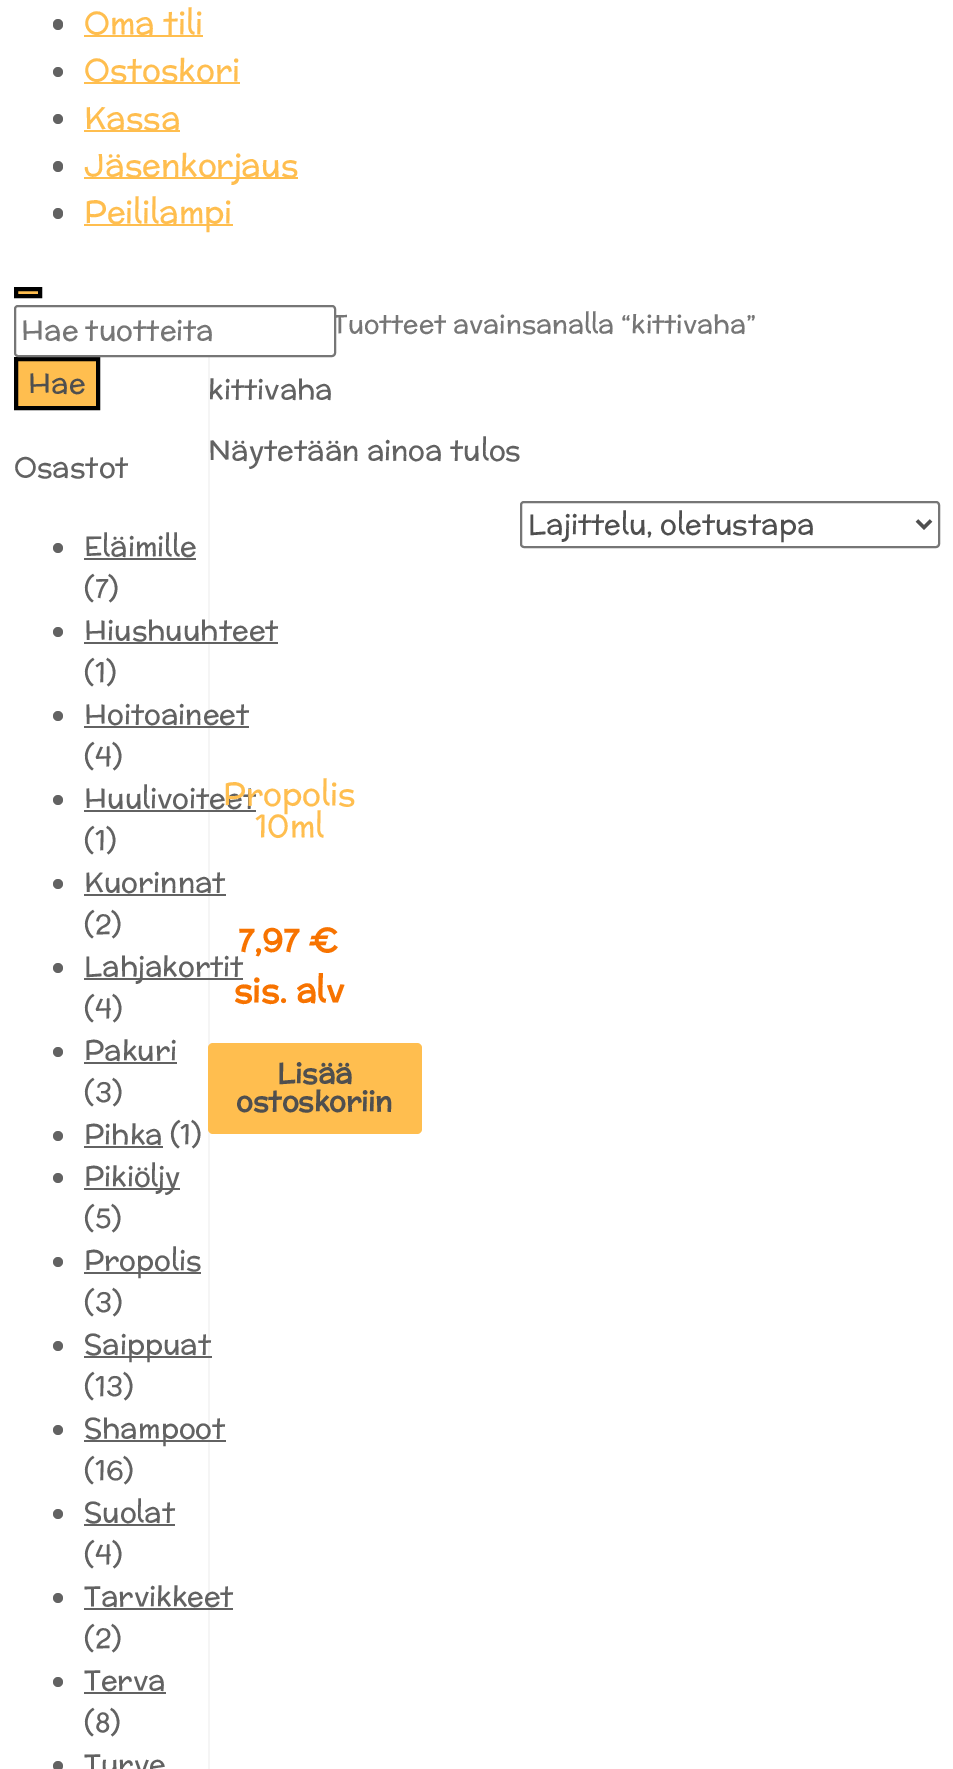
%!PS
<< /PageSize [953 1769] /PageUsesTransparency true >> setpagedevice
/mt/moveto load def
/li/lineto load def
/cp/closepath load def
/fl/fill load def
/st/stroke load def
/gs/gsave load def
/gr/grestore load def
/lw/setlinewidth load def
/co { dup -16 bitshift 255 div exch dup -8 bitshift 255 and 255 div exch 255 and 255 div setrgbcolor } def
/fn { [ exch dup neg 0 0 3 -1 roll 0 0 ] selectfont } def
/tx { co fn moveto show } def
/bx { co rectfill } def
/al { dup .setfillconstantalpha .setstrokeconstantalpha } def
/ci { newpath 0 360 arc closepath } def
/rr { 5 dict begin { /r /h /w /y /x } { exch def } forall
  x r add y moveto x w add y 2 copy h add r arct x w add y h add x 1 index r arct
  x y h add x y r arct x y 2 copy exch w add exch r arct closepath end } def
0 .pushpdf14devicefilter
0 1769 translate 1 -1 scale
4 setmiterlimit
0 0 953 1769 16#FFFFFF bx
16#626262 co
53 19 10 11 5 rr fl
84 35 119 2 16#FFBE4F bx
16#626262 co
58 72 5 ci fl
84 82 156 2 16#FFBE4F bx
16#626262 co
58 119 5 ci fl
84 130 96 2 16#FFBE4F bx
16#626262 co
53 161 10 11 5 rr fl
84 177 214 2 16#FFBE4F bx
16#626262 co
53 208 10 11 5 rr fl
84 224 149 2 16#FFBE4F bx
16 289 mt 40 289 li 40 296 li 16 296 li cp gs fl gr
16#000000 co
4 lw
st
0.04 al
16 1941 mt 210 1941 li 210 305 li 208 305 li 208 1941 li cp fl
1 al
16#FFBE4F co
16 359 mt 98 359 li 98 408 li 16 408 li cp gs fl gr
16#000000 co
st
16#626262 co
58 548 5 ci fl
84 558 112 2 16#626262 bx
58 632 5 ci fl
84 642 194 2 16#626262 bx
58 716 5 ci fl
84 726 165 2 16#626262 bx
58 800 5 ci fl
84 810 172 2 16#626262 bx
58 884 5 ci fl
84 894 142 2 16#626262 bx
58 968 5 ci fl
84 978 159 2 16#626262 bx
58 1052 5 ci fl
84 1062 93 2 16#626262 bx
58 1136 5 ci fl
84 1146 79 2 16#626262 bx
58 1178 5 ci fl
84 1188 96 2 16#626262 bx
58 1262 5 ci fl
84 1272 117 2 16#626262 bx
58 1346 5 ci fl
84 1356 128 2 16#626262 bx
58 1430 5 ci fl
84 1440 142 2 16#626262 bx
58 1514 5 ci fl
84 1524 91 2 16#626262 bx
58 1598 5 ci fl
84 1608 149 2 16#626262 bx
58 1682 5 ci fl
84 1692 82 2 16#626262 bx
58 1766 5 ci fl
16#767676 co
2 lw
521 502 418 45 3 rr st
16#4F4F4F co
3.5 lw
917 520.5 mt 924 527.5 li 931 520.5 li st
16#FFBE4F co
208 1043 214 91 5 rr fl
(Oma tili) 84 34 /McLaren-Regular 31.5 16#FFBE4F tx
(Ostoskori) 84 81 /McLaren-Regular 31.5 16#FFBE4F tx
(Kassa) 84 129 /McLaren-Regular 31.5 16#FFBE4F tx
(Jäsenkorjaus) 84 176 /McLaren-Regular 31.5 16#FFBE4F tx
(Peililampi) 84 223 /McLaren-Regular 31.5 16#FFBE4F tx
(Hae) 28 393 /McLaren-Regular 28 16#4F4F4F tx
(Osastot) 14 477 /McLaren-Regular 28 16#626262 tx
(Eläimille) 84 556 /McLaren-Regular 28 16#626262 tx
(\(7\)) 84 598 /McLaren-Regular 28 16#626262 tx
(Hiushuuhteet) 84 640 /McLaren-Regular 28 16#626262 tx
(\(1\)) 84 682 /McLaren-Regular 28 16#626262 tx
(Hoitoaineet) 84 724 /McLaren-Regular 28 16#626262 tx
(\(4\)) 84 766 /McLaren-Regular 28 16#626262 tx
(Huulivoiteet) 84 808 /McLaren-Regular 28 16#626262 tx
(\(1\)) 84 850 /McLaren-Regular 28 16#626262 tx
(Kuorinnat) 84 892 /McLaren-Regular 28 16#626262 tx
(\(2\)) 84 934 /McLaren-Regular 28 16#626262 tx
(Lahjakortit) 84 976 /McLaren-Regular 28 16#626262 tx
(\(4\)) 84 1018 /McLaren-Regular 28 16#626262 tx
(Pakuri) 84 1060 /McLaren-Regular 28 16#626262 tx
(\(3\)) 84 1102 /McLaren-Regular 28 16#626262 tx
(Pihka \(1\)) 84 1144 /McLaren-Regular 28 16#626262 tx
(Pikiöljy) 84 1186 /McLaren-Regular 28 16#626262 tx
(\(5\)) 84 1228 /McLaren-Regular 28 16#626262 tx
(Propolis) 84 1270 /McLaren-Regular 28 16#626262 tx
(\(3\)) 84 1312 /McLaren-Regular 28 16#626262 tx
(Saippuat) 84 1354 /McLaren-Regular 28 16#626262 tx
(\(13\)) 84 1396 /McLaren-Regular 28 16#626262 tx
(Shampoot) 84 1438 /McLaren-Regular 28 16#626262 tx
(\(16\)) 84 1480 /McLaren-Regular 28 16#626262 tx
(Suolat) 84 1522 /McLaren-Regular 28 16#626262 tx
(\(4\)) 84 1564 /McLaren-Regular 28 16#626262 tx
(Tarvikkeet) 84 1606 /McLaren-Regular 28 16#626262 tx
(\(2\)) 84 1648 /McLaren-Regular 28 16#626262 tx
(Terva) 84 1690 /McLaren-Regular 28 16#626262 tx
(\(8\)) 84 1732 /McLaren-Regular 28 16#626262 tx
(Turve) 84 1774 /McLaren-Regular 28 16#626262 tx
(Tuotteet avainsanalla “kittivaha”) 332 333 /McLaren-Regular 25.75 16#767676 tx
16#FFFFFF co
15 306 320 50 3 rr gs fl gr
16#767676 co
2 lw
st
(Hae tuotteita) 21 340 /McLaren-Regular 28 16#767676 tx
(kittivaha) 208 399 /McLaren-Regular 28 16#626262 tx
(Näytetään ainoa tulos) 208 460 /McLaren-Regular 28 16#626262 tx
(Lajittelu, oletustapa) 528 534 /McLaren-Regular 28 16#4F4F4F tx
(Propolis) 223 805 /McLaren-Regular 31.5 16#FFBE4F tx
(10ml) 255 837 /McLaren-Regular 31.5 16#FFBE4F tx
(7,97 €) 238 952 /McLaren-Bold 33 16#F77300 tx
(sis. alv) 234 1002 /McLaren-Bold 33 16#F77300 tx
(Lisää) 277 1083 /McLaren-Bold 28 16#4F4F4F tx
(ostoskoriin) 236 1111 /McLaren-Bold 28 16#4F4F4F tx
.poppdf14devicefilter showpage
